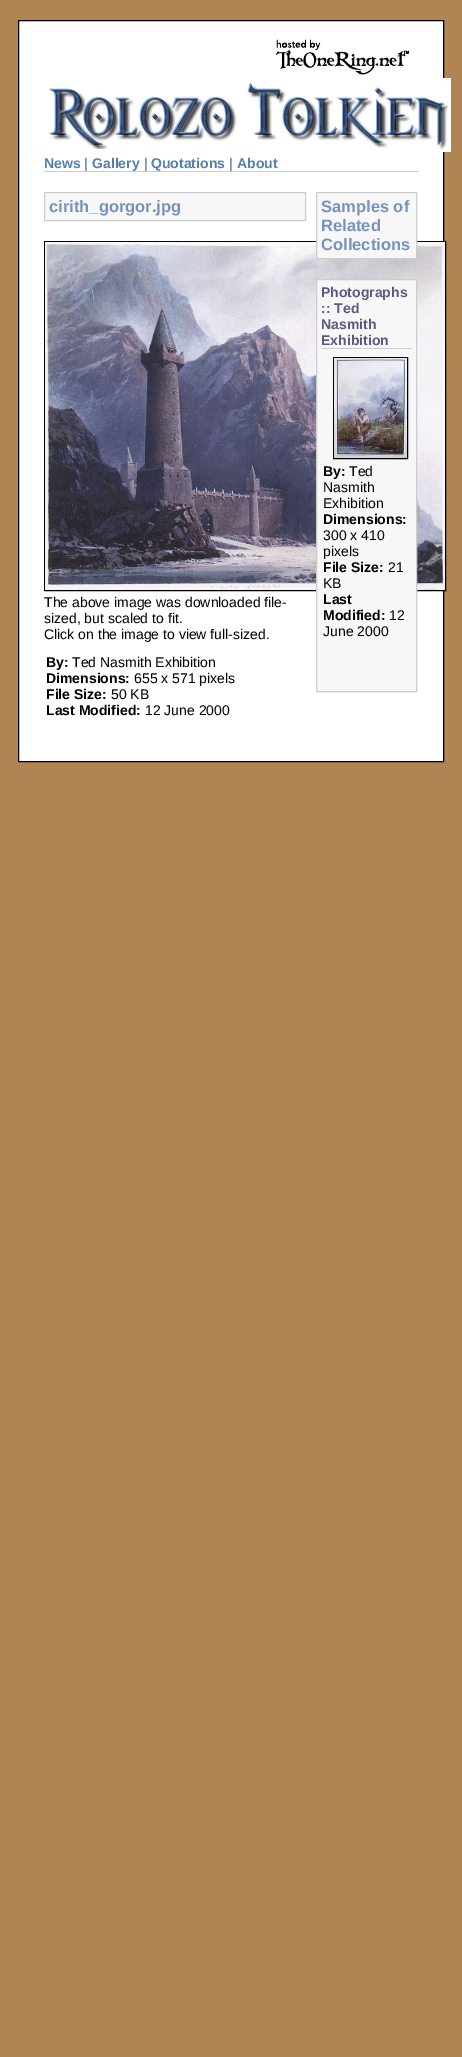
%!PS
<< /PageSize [462 2057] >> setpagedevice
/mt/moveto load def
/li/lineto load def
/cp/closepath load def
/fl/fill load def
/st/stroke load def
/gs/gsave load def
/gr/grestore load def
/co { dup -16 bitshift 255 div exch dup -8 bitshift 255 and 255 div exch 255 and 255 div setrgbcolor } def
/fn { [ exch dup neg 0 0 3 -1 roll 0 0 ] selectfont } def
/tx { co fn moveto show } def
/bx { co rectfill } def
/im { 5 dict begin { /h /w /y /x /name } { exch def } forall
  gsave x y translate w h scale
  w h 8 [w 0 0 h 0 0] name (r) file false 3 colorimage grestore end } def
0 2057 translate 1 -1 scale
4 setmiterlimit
0 0 462 2057 16#B08553 bx
16#FFFFFF co
18.5 20.5 mt 443.5 20.5 li 443.5 761.5 li 18.5 761.5 li cp gs fl gr
16#000000 co
st
(media/1.raw) 275 39 134 36 im
(media/2.raw) 49 78 402 74 im
44 171 374 1 16#CCCCCC bx
16#F7F7F7 co
44.5 192.5 mt 305.5 192.5 li 305.5 220.5 li 44.5 220.5 li cp gs fl gr
16#CCCCCC co
st
16#000000 co
44.5 241.5 401 349 rectstroke
(media/3.raw) 45 242 400 348 im
16#F7F7F7 co
316.5 192.5 mt 416.5 192.5 li 416.5 258.5 li 316.5 258.5 li cp gs fl gr
16#CCCCCC co
st
16#F7F7F7 co
316.5 279.5 mt 416.5 279.5 li 416.5 691.5 li 316.5 691.5 li cp gs fl gr
16#CCCCCC co
st
321 348 91 1 16#CCCCCC bx
16#000000 co
333.5 357.5 74 101 rectstroke
(media/4.raw) 334 358 73 100 im
(News) 44 168 /LiberationSans-Bold 14 16#537EB0 tx
(|) 84 168 /LiberationSans-Bold 14 16#7792BC tx
(Gallery) 92 168 /LiberationSans-Bold 14 16#537EB0 tx
(|) 144 168 /LiberationSans-Bold 14 16#7792BC tx
(Quotations) 151 168 /LiberationSans-Bold 14 16#537EB0 tx
(|) 229 168 /LiberationSans-Bold 14 16#7792BC tx
(About) 237 168 /LiberationSans-Bold 14 16#537EB0 tx
(cirith_gorgor.jpg) 49 212 /LiberationSans-Bold 16.5 16#7792BC tx
(The above image was downloaded file-) 44 607 /LiberationSans-Regular 14 16#000000 tx
(sized, but scaled to fit.) 44 623 /LiberationSans-Regular 14 16#000000 tx
(Click on the image to view full-sized.) 44 639 /LiberationSans-Regular 14 16#000000 tx
(By:) 46 667 /LiberationSans-Bold 14 16#000000 tx
(Ted Nasmith Exhibition) 72 667 /LiberationSans-Regular 14 16#000000 tx
(Dimensions:) 46 683 /LiberationSans-Bold 14 16#000000 tx
(655 x 571 pixels) 134 683 /LiberationSans-Regular 14 16#000000 tx
(File Size:) 46 699 /LiberationSans-Bold 14 16#000000 tx
(50 KB) 111 699 /LiberationSans-Regular 14 16#000000 tx
(Last Modified:) 46 715 /LiberationSans-Bold 14 16#000000 tx
(12 June 2000) 145 715 /LiberationSans-Regular 14 16#000000 tx
(Samples of) 321 212 /LiberationSans-Bold 16.5 16#7792BC tx
(Related) 321 231 /LiberationSans-Bold 16.5 16#7792BC tx
(Collections) 321 250 /LiberationSans-Bold 16.5 16#7792BC tx
(Photographs) 321 297 /LiberationSans-Bold 14 16#595983 tx
(:: Ted) 321 313 /LiberationSans-Bold 14 16#595983 tx
(Nasmith) 321 329 /LiberationSans-Bold 14 16#595983 tx
(Exhibition) 321 345 /LiberationSans-Bold 14 16#595983 tx
(By:) 323 476 /LiberationSans-Bold 14 16#000000 tx
(Ted) 349 476 /LiberationSans-Regular 14 16#000000 tx
(Nasmith) 323 492 /LiberationSans-Regular 14 16#000000 tx
(Exhibition) 323 508 /LiberationSans-Regular 14 16#000000 tx
(Dimensions:) 323 524 /LiberationSans-Bold 14 16#000000 tx
(300 x 410) 323 540 /LiberationSans-Regular 14 16#000000 tx
(pixels) 323 556 /LiberationSans-Regular 14 16#000000 tx
(File Size:) 323 572 /LiberationSans-Bold 14 16#000000 tx
(21) 388 572 /LiberationSans-Regular 14 16#000000 tx
(KB) 323 588 /LiberationSans-Regular 14 16#000000 tx
(Last) 323 604 /LiberationSans-Bold 14 16#000000 tx
(Modified:) 323 620 /LiberationSans-Bold 14 16#000000 tx
(12) 389 620 /LiberationSans-Regular 14 16#000000 tx
(June 2000) 323 636 /LiberationSans-Regular 14 16#000000 tx
showpage
